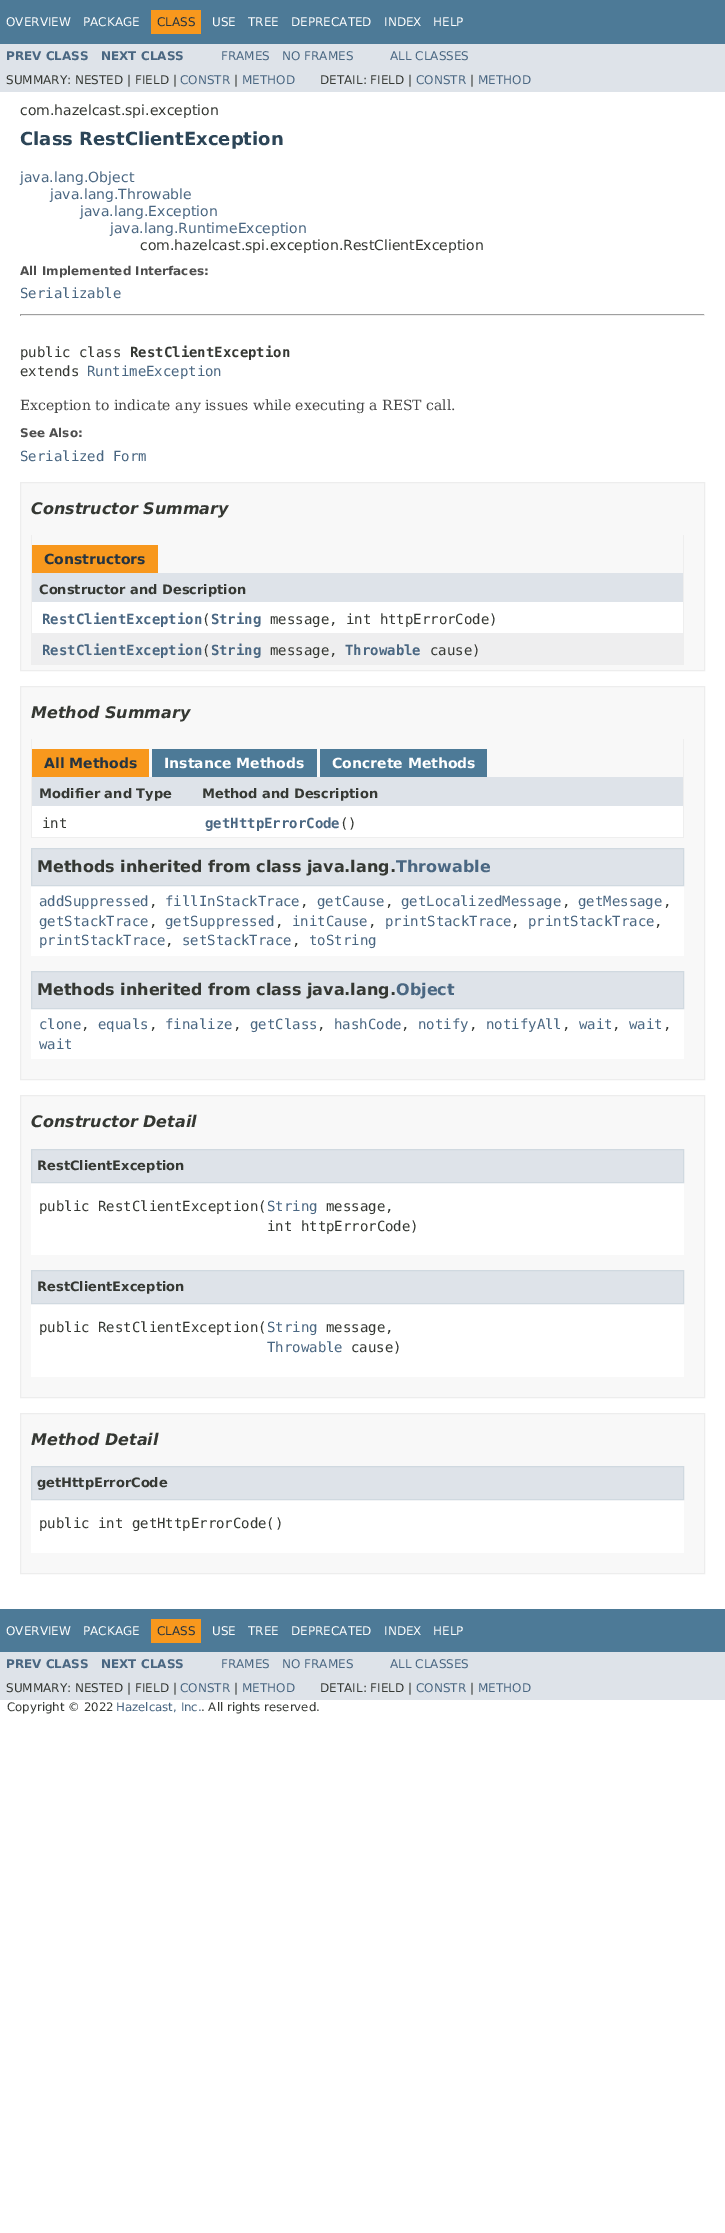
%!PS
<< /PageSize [725 2233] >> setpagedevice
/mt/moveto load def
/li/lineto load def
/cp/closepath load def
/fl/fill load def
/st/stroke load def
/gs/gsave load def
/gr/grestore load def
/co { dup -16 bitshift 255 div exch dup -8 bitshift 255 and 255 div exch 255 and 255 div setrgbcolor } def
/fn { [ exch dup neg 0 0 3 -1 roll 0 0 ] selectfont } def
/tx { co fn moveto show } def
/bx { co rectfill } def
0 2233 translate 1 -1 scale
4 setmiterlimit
0 0 725 2233 16#FFFFFF bx
0 0 725 44 16#4D7A97 bx
151 10 50 24 16#F8981D bx
0 44 725 48 16#DEE3E9 bx
20 314 685 1 16#9F9F9F bx
704 314 1 2 16#EEEEEE bx
20 315 685 1 16#EEEEEE bx
20 314 1 2 16#9F9F9F bx
16#F8F8F8 co
20.5 482.5 mt 704.5 482.5 li 704.5 670.5 li 20.5 670.5 li cp gs fl gr
16#EDEDED co
st
683 535 1 130 16#EEEEEE bx
31 664 653 1 16#EEEEEE bx
31 535 1 130 16#EEEEEE bx
32 545 126 28 16#F8981D bx
32 573 651 29 16#DEE3E9 bx
32 602 651 31 16#FFFFFF bx
32 633 651 31 16#EEEEEF bx
16#F8F8F8 co
20.5 686.5 mt 704.5 686.5 li 704.5 1079.5 li 20.5 1079.5 li cp gs fl gr
16#EDEDED co
st
683 739 1 99 16#EEEEEE bx
31 837 653 1 16#EEEEEE bx
31 739 1 99 16#EEEEEE bx
32 749 117 28 16#F8981D bx
152 749 165 28 16#4D7A97 bx
320 749 167 28 16#4D7A97 bx
32 777 651 29 16#DEE3E9 bx
32 806 651 31 16#FFFFFF bx
31 886 653 70 16#FFFFFF bx
16#DEE3E9 co
31.5 848.5 mt 683.5 848.5 li 683.5 885.5 li 31.5 885.5 li cp gs fl gr
16#D0D9E0 co
st
31 1009 653 50 16#FFFFFF bx
16#DEE3E9 co
31.5 971.5 mt 683.5 971.5 li 683.5 1008.5 li 31.5 1008.5 li cp gs fl gr
16#D0D9E0 co
st
16#F8F8F8 co
20.5 1095.5 mt 704.5 1095.5 li 704.5 1397.5 li 20.5 1397.5 li cp gs fl gr
16#EDEDED co
st
31 1183 653 72 16#FFFFFF bx
16#DEE3E9 co
31.5 1149.5 mt 683.5 1149.5 li 683.5 1182.5 li 31.5 1182.5 li cp gs fl gr
16#D0D9E0 co
st
31 1304 653 73 16#FFFFFF bx
16#DEE3E9 co
31.5 1270.5 mt 683.5 1270.5 li 683.5 1303.5 li 31.5 1303.5 li cp gs fl gr
16#D0D9E0 co
st
16#F8F8F8 co
20.5 1413.5 mt 704.5 1413.5 li 704.5 1573.5 li 20.5 1573.5 li cp gs fl gr
16#EDEDED co
st
31 1500 653 53 16#FFFFFF bx
16#DEE3E9 co
31.5 1466.5 mt 683.5 1466.5 li 683.5 1499.5 li 31.5 1499.5 li cp gs fl gr
16#D0D9E0 co
st
0 1609 725 43 16#4D7A97 bx
151 1619 50 24 16#F8981D bx
0 1652 725 48 16#DEE3E9 bx
(OVERVIEW) 6 26 /DejaVuSans-Regular 12 16#FFFFFF tx
(PACKAGE) 83 26 /DejaVuSans-Regular 12 16#FFFFFF tx
(CLASS) 157 26 /DejaVuSans-Regular 12 16#253441 tx
(USE) 212 26 /DejaVuSans-Regular 12 16#FFFFFF tx
(TREE) 248 26 /DejaVuSans-Regular 12 16#FFFFFF tx
(DEPRECATED) 291 26 /DejaVuSans-Regular 12 16#FFFFFF tx
(INDEX) 384 26 /DejaVuSans-Regular 12 16#FFFFFF tx
(HELP) 433 26 /DejaVuSans-Regular 12 16#FFFFFF tx
(PREV CLASS) 6 60 /DejaVuSans-Bold 12 16#4A6782 tx
(NEXT CLASS) 101 60 /DejaVuSans-Bold 12 16#4A6782 tx
(FRAMES) 221 60 /DejaVuSans-Regular 12 16#4A6782 tx
(NO FRAMES) 282 60 /DejaVuSans-Regular 12 16#4A6782 tx
(ALL CLASSES) 390 60 /DejaVuSans-Regular 12 16#4A6782 tx
(SUMMARY: NESTED | FIELD |) 6 84 /DejaVuSans-Regular 12 16#353833 tx
(CONSTR) 180 84 /DejaVuSans-Regular 12 16#4A6782 tx
(|) 234 84 /DejaVuSans-Regular 12 16#353833 tx
(METHOD) 242 84 /DejaVuSans-Regular 12 16#4A6782 tx
(DETAIL: FIELD |) 320 84 /DejaVuSans-Regular 12 16#353833 tx
(CONSTR) 416 84 /DejaVuSans-Regular 12 16#4A6782 tx
(|) 470 84 /DejaVuSans-Regular 12 16#353833 tx
(METHOD) 478 84 /DejaVuSans-Regular 12 16#4A6782 tx
(com.hazelcast.spi.exception) 20 115 /DejaVuSans-Regular 14 16#353833 tx
(Class RestClientException) 20 145 /DejaVuSans-Bold 18 16#2C4557 tx
(java.lang.Object) 20 182 /DejaVuSans-Regular 14 16#4A6782 tx
(java.lang.Throwable) 50 199 /DejaVuSans-Regular 14 16#4A6782 tx
(java.lang.Exception) 80 216 /DejaVuSans-Regular 14 16#4A6782 tx
(java.lang.RuntimeException) 110 233 /DejaVuSans-Regular 14 16#4A6782 tx
(com.hazelcast.spi.exception.RestClientException) 140 250 /DejaVuSans-Regular 14 16#353833 tx
(All Implemented Interfaces:) 20 275 /DejaVuSans-Bold 12 16#4E4E4E tx
(Serializable) 20 298 /DejaVuSansMono-Regular 14 16#4A6782 tx
(public class) 20 357 /DejaVuSansMono-Regular 14 16#353833 tx
(RestClientException) 130 357 /DejaVuSansMono-Bold 14 16#353833 tx
(extends) 20 376 /DejaVuSansMono-Regular 14 16#353833 tx
(RuntimeException) 87 376 /DejaVuSansMono-Regular 14 16#4A6782 tx
(Exception to indicate any issues while executing a REST call.) 20 410 /DejaVuSerif-Regular 14 16#474747 tx
(See Also:) 20 437 /DejaVuSans-Bold 12 16#4E4E4E tx
(Serialized Form) 20 461 /DejaVuSansMono-Regular 14 16#4A6782 tx
(Constructor Summary) 31 514 /DejaVuSans-BoldItalic 16 16#353833 tx
(Constructors) 44 564 /DejaVuSans-Bold 14 16#253441 tx
(Constructor and Description) 39 594 /DejaVuSans-Bold 13 16#353833 tx
(RestClientException String) 42 624 /DejaVuSansMono-Bold 14 16#4A6782 tx
(\() 202 624 /DejaVuSansMono-Regular 14 16#353833 tx
(message, int httpErrorCode\)) 270 624 /DejaVuSansMono-Regular 14 16#353833 tx
(RestClientException String) 42 655 /DejaVuSansMono-Bold 14 16#4A6782 tx
(\() 202 655 /DejaVuSansMono-Regular 14 16#353833 tx
(message,) 270 655 /DejaVuSansMono-Regular 14 16#353833 tx
(Throwable) 345 655 /DejaVuSansMono-Bold 14 16#4A6782 tx
(cause\)) 430 655 /DejaVuSansMono-Regular 14 16#353833 tx
(Method Summary) 31 718 /DejaVuSans-BoldItalic 16 16#353833 tx
(All Methods) 44 768 /DejaVuSans-Bold 14 16#253441 tx
(Instance Methods) 164 768 /DejaVuSans-Bold 14 16#FFFFFF tx
(Concrete Methods) 332 768 /DejaVuSans-Bold 14 16#FFFFFF tx
(Modifier and Type) 39 798 /DejaVuSans-Bold 13 16#353833 tx
(Method and Description) 202 798 /DejaVuSans-Bold 13 16#353833 tx
(int) 42 828 /DejaVuSansMono-Regular 14 16#353833 tx
(getHttpErrorCode) 205 828 /DejaVuSansMono-Bold 14 16#4A6782 tx
(\(\)) 340 828 /DejaVuSansMono-Regular 14 16#353833 tx
(Methods inherited from class java.lang.) 37 872 /DejaVuSans-Bold 16 16#353833 tx
(Throwable) 396 872 /DejaVuSans-Bold 16 16#4A6782 tx
(addSuppressed) 39 906 /DejaVuSansMono-Regular 14 16#4A6782 tx
(,) 149 906 /DejaVuSansMono-Regular 14 16#353833 tx
(fillInStackTrace) 165 906 /DejaVuSansMono-Regular 14 16#4A6782 tx
(,) 300 906 /DejaVuSansMono-Regular 14 16#353833 tx
(getCause) 317 906 /DejaVuSansMono-Regular 14 16#4A6782 tx
(,) 385 906 /DejaVuSansMono-Regular 14 16#353833 tx
(getLocalizedMessage) 401 906 /DejaVuSansMono-Regular 14 16#4A6782 tx
(,) 562 906 /DejaVuSansMono-Regular 14 16#353833 tx
(getMessage) 578 906 /DejaVuSansMono-Regular 14 16#4A6782 tx
(,) 663 906 /DejaVuSansMono-Regular 14 16#353833 tx
(getStackTrace) 39 926 /DejaVuSansMono-Regular 14 16#4A6782 tx
(,) 149 926 /DejaVuSansMono-Regular 14 16#353833 tx
(getSuppressed) 165 926 /DejaVuSansMono-Regular 14 16#4A6782 tx
(,) 275 926 /DejaVuSansMono-Regular 14 16#353833 tx
(initCause) 292 926 /DejaVuSansMono-Regular 14 16#4A6782 tx
(,) 368 926 /DejaVuSansMono-Regular 14 16#353833 tx
(printStackTrace) 385 926 /DejaVuSansMono-Regular 14 16#4A6782 tx
(,) 511 926 /DejaVuSansMono-Regular 14 16#353833 tx
(printStackTrace) 528 926 /DejaVuSansMono-Regular 14 16#4A6782 tx
(,) 654 926 /DejaVuSansMono-Regular 14 16#353833 tx
(printStackTrace) 39 945 /DejaVuSansMono-Regular 14 16#4A6782 tx
(,) 165 945 /DejaVuSansMono-Regular 14 16#353833 tx
(setStackTrace) 182 945 /DejaVuSansMono-Regular 14 16#4A6782 tx
(,) 292 945 /DejaVuSansMono-Regular 14 16#353833 tx
(toString) 309 945 /DejaVuSansMono-Regular 14 16#4A6782 tx
(Methods inherited from class java.lang.) 37 995 /DejaVuSans-Bold 16 16#353833 tx
(Object) 396 995 /DejaVuSans-Bold 16 16#4A6782 tx
(clone) 39 1029 /DejaVuSansMono-Regular 14 16#4A6782 tx
(,) 81 1029 /DejaVuSansMono-Regular 14 16#353833 tx
(equals) 98 1029 /DejaVuSansMono-Regular 14 16#4A6782 tx
(,) 149 1029 /DejaVuSansMono-Regular 14 16#353833 tx
(finalize) 165 1029 /DejaVuSansMono-Regular 14 16#4A6782 tx
(,) 233 1029 /DejaVuSansMono-Regular 14 16#353833 tx
(getClass) 250 1029 /DejaVuSansMono-Regular 14 16#4A6782 tx
(,) 317 1029 /DejaVuSansMono-Regular 14 16#353833 tx
(hashCode) 334 1029 /DejaVuSansMono-Regular 14 16#4A6782 tx
(,) 401 1029 /DejaVuSansMono-Regular 14 16#353833 tx
(notify) 418 1029 /DejaVuSansMono-Regular 14 16#4A6782 tx
(,) 469 1029 /DejaVuSansMono-Regular 14 16#353833 tx
(notifyAll) 486 1029 /DejaVuSansMono-Regular 14 16#4A6782 tx
(,) 562 1029 /DejaVuSansMono-Regular 14 16#353833 tx
(wait) 579 1029 /DejaVuSansMono-Regular 14 16#4A6782 tx
(,) 612 1029 /DejaVuSansMono-Regular 14 16#353833 tx
(wait) 629 1029 /DejaVuSansMono-Regular 14 16#4A6782 tx
(,) 663 1029 /DejaVuSansMono-Regular 14 16#353833 tx
(wait) 39 1049 /DejaVuSansMono-Regular 14 16#4A6782 tx
(Constructor Detail) 31 1127 /DejaVuSans-BoldItalic 16 16#353833 tx
(RestClientException) 37 1170 /DejaVuSans-Bold 13 16#353833 tx
(public RestClientException\() 39 1211 /DejaVuSansMono-Regular 14 16#353833 tx
(String) 267 1211 /DejaVuSansMono-Regular 14 16#4A6782 tx
(message,) 326 1211 /DejaVuSansMono-Regular 14 16#353833 tx
(int httpErrorCode\)) 267 1231 /DejaVuSansMono-Regular 14 16#353833 tx
(RestClientException) 37 1291 /DejaVuSans-Bold 13 16#353833 tx
(public RestClientException\() 39 1332 /DejaVuSansMono-Regular 14 16#353833 tx
(String) 267 1332 /DejaVuSansMono-Regular 14 16#4A6782 tx
(message,) 326 1332 /DejaVuSansMono-Regular 14 16#353833 tx
(Throwable) 267 1352 /DejaVuSansMono-Regular 14 16#4A6782 tx
(cause\)) 351 1352 /DejaVuSansMono-Regular 14 16#353833 tx
(Method Detail) 31 1445 /DejaVuSans-BoldItalic 16 16#353833 tx
(getHttpErrorCode) 37 1487 /DejaVuSans-Bold 13 16#353833 tx
(public int getHttpErrorCode\(\)) 39 1528 /DejaVuSansMono-Regular 14 16#353833 tx
(OVERVIEW) 6 1635 /DejaVuSans-Regular 12 16#FFFFFF tx
(PACKAGE) 83 1635 /DejaVuSans-Regular 12 16#FFFFFF tx
(CLASS) 157 1635 /DejaVuSans-Regular 12 16#253441 tx
(USE) 212 1635 /DejaVuSans-Regular 12 16#FFFFFF tx
(TREE) 248 1635 /DejaVuSans-Regular 12 16#FFFFFF tx
(DEPRECATED) 291 1635 /DejaVuSans-Regular 12 16#FFFFFF tx
(INDEX) 384 1635 /DejaVuSans-Regular 12 16#FFFFFF tx
(HELP) 433 1635 /DejaVuSans-Regular 12 16#FFFFFF tx
(PREV CLASS) 6 1668 /DejaVuSans-Bold 12 16#4A6782 tx
(NEXT CLASS) 101 1668 /DejaVuSans-Bold 12 16#4A6782 tx
(FRAMES) 221 1668 /DejaVuSans-Regular 12 16#4A6782 tx
(NO FRAMES) 282 1668 /DejaVuSans-Regular 12 16#4A6782 tx
(ALL CLASSES) 390 1668 /DejaVuSans-Regular 12 16#4A6782 tx
(SUMMARY: NESTED | FIELD |) 6 1692 /DejaVuSans-Regular 12 16#353833 tx
(CONSTR) 180 1692 /DejaVuSans-Regular 12 16#4A6782 tx
(|) 234 1692 /DejaVuSans-Regular 12 16#353833 tx
(METHOD) 242 1692 /DejaVuSans-Regular 12 16#4A6782 tx
(DETAIL: FIELD |) 320 1692 /DejaVuSans-Regular 12 16#353833 tx
(CONSTR) 416 1692 /DejaVuSans-Regular 12 16#4A6782 tx
(|) 470 1692 /DejaVuSans-Regular 12 16#353833 tx
(METHOD) 478 1692 /DejaVuSans-Regular 12 16#4A6782 tx
(Copyright © 2022) 7 1711 /DejaVuSans-Regular 11.75 16#353833 tx
(Hazelcast, Inc.) 116 1711 /DejaVuSans-Regular 11.75 16#4A6782 tx
(. All rights reserved.) 201 1711 /DejaVuSans-Regular 11.75 16#353833 tx
showpage
